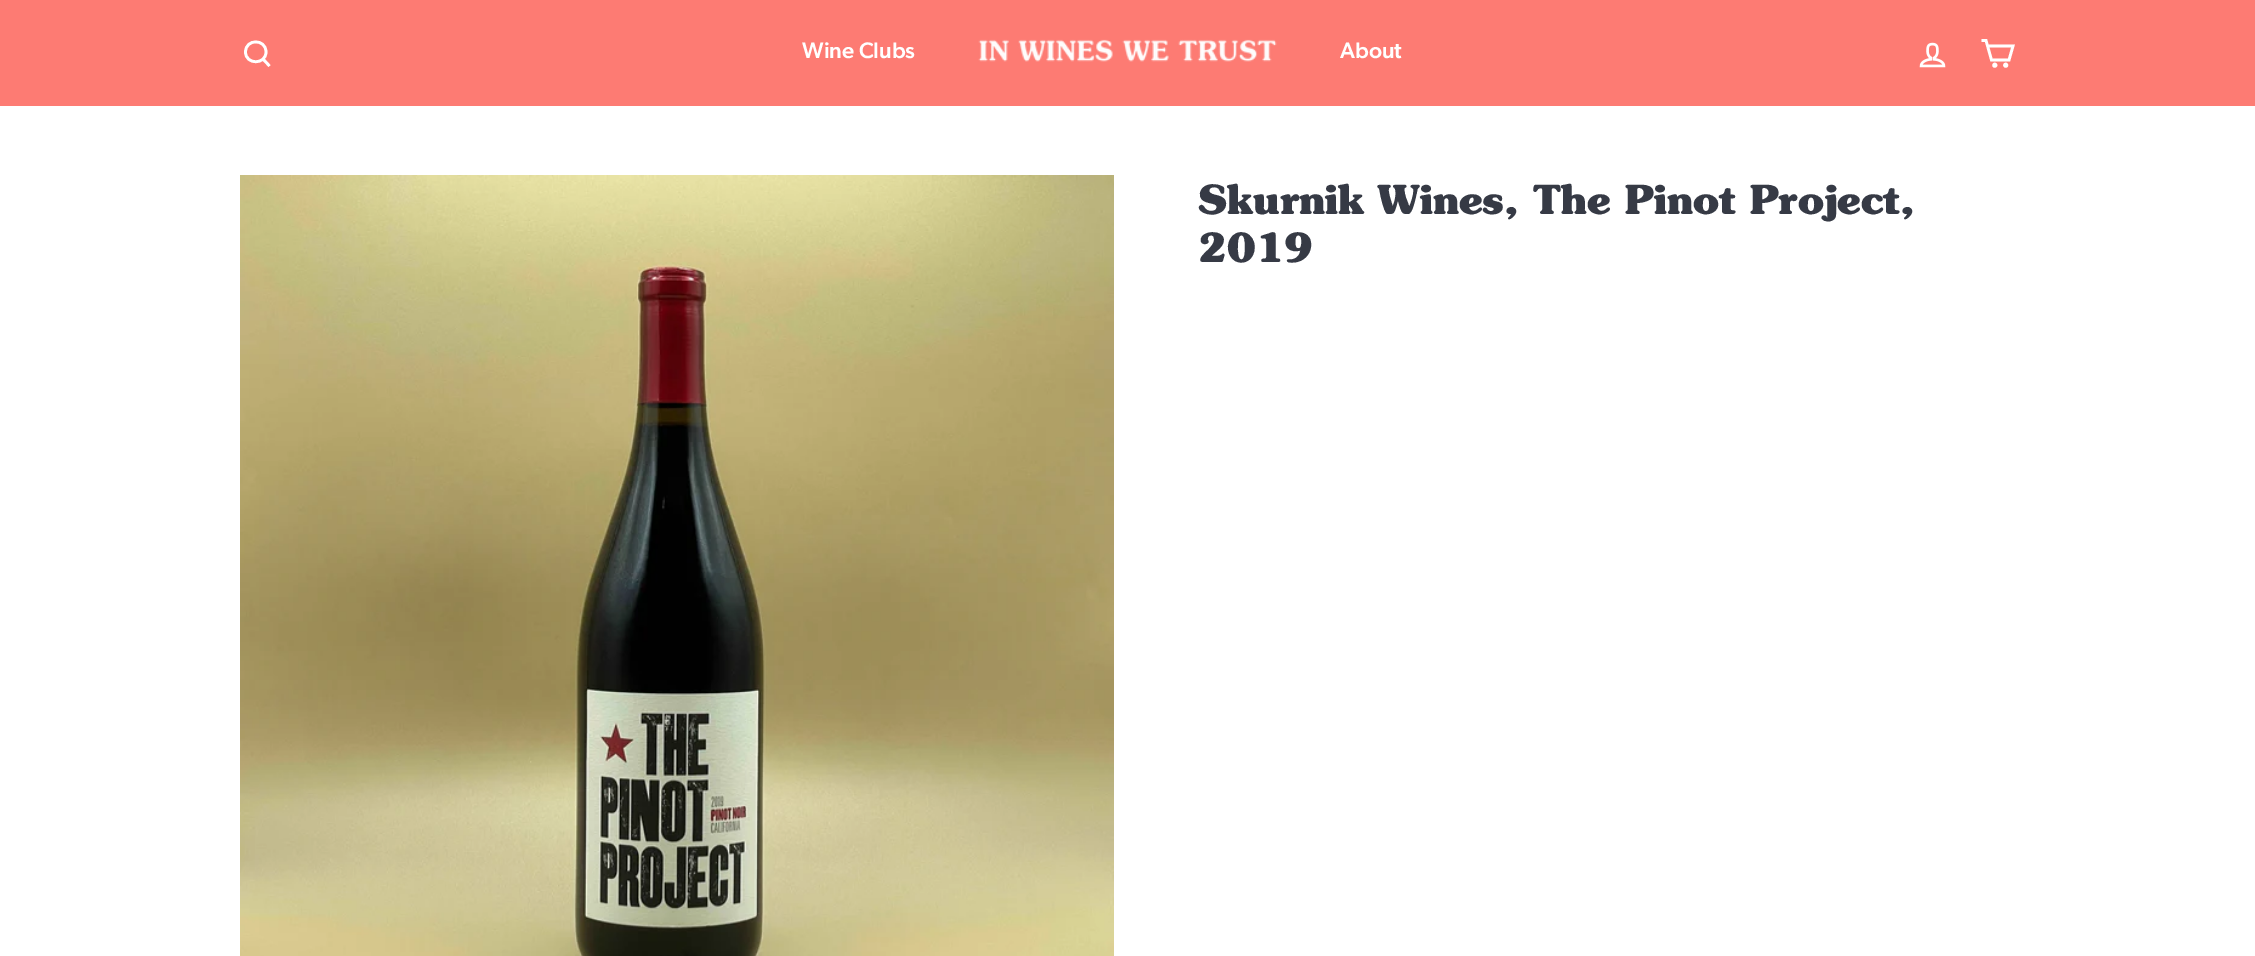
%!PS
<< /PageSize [2255 956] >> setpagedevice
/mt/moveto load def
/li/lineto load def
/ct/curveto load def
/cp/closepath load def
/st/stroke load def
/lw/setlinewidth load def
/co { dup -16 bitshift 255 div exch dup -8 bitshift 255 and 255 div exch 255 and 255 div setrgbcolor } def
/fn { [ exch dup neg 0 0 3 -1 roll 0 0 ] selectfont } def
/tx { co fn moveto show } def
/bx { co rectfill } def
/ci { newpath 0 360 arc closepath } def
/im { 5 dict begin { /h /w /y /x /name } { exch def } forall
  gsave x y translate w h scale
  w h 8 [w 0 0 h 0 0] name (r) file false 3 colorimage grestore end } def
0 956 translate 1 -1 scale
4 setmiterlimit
0 0 2255 956 16#FFFFFF bx
0 0 2255 106 16#FD7B73 bx
16#FFFFFF co
2.7 lw
266 52 mt 266 65 245.5 65 245.5 52 ct 245.5 38.5 266 38.5 266 52 ct cp 269.5 66 mt 263 59 li st
(media/1.raw) 978 39 299 23 im
(media/2.raw) 1919 42 27 26 im
1987.5 46 mt 2013 46 li 2009 60 li 1991.5 60 li 1986 40.5 li 1981.5 40.5 li st
1994.8 65.2 1.1 ci st
2005.7 65.2 1.1 ci st
(media/3.raw) 240 175 874 781 im
(Wine Clubs) 802 58 /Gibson-Medium 22.5 16#FFFFFF tx
(About) 1340 58 /Gibson-Medium 22.5 16#FFFFFF tx
(Skurnik Wines, The Pinot Project,) 1198 214 /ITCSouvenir-Bold 40 16#363A45 tx
(2019) 1198 262 /ITCSouvenir-Bold 40 16#363A45 tx
showpage
